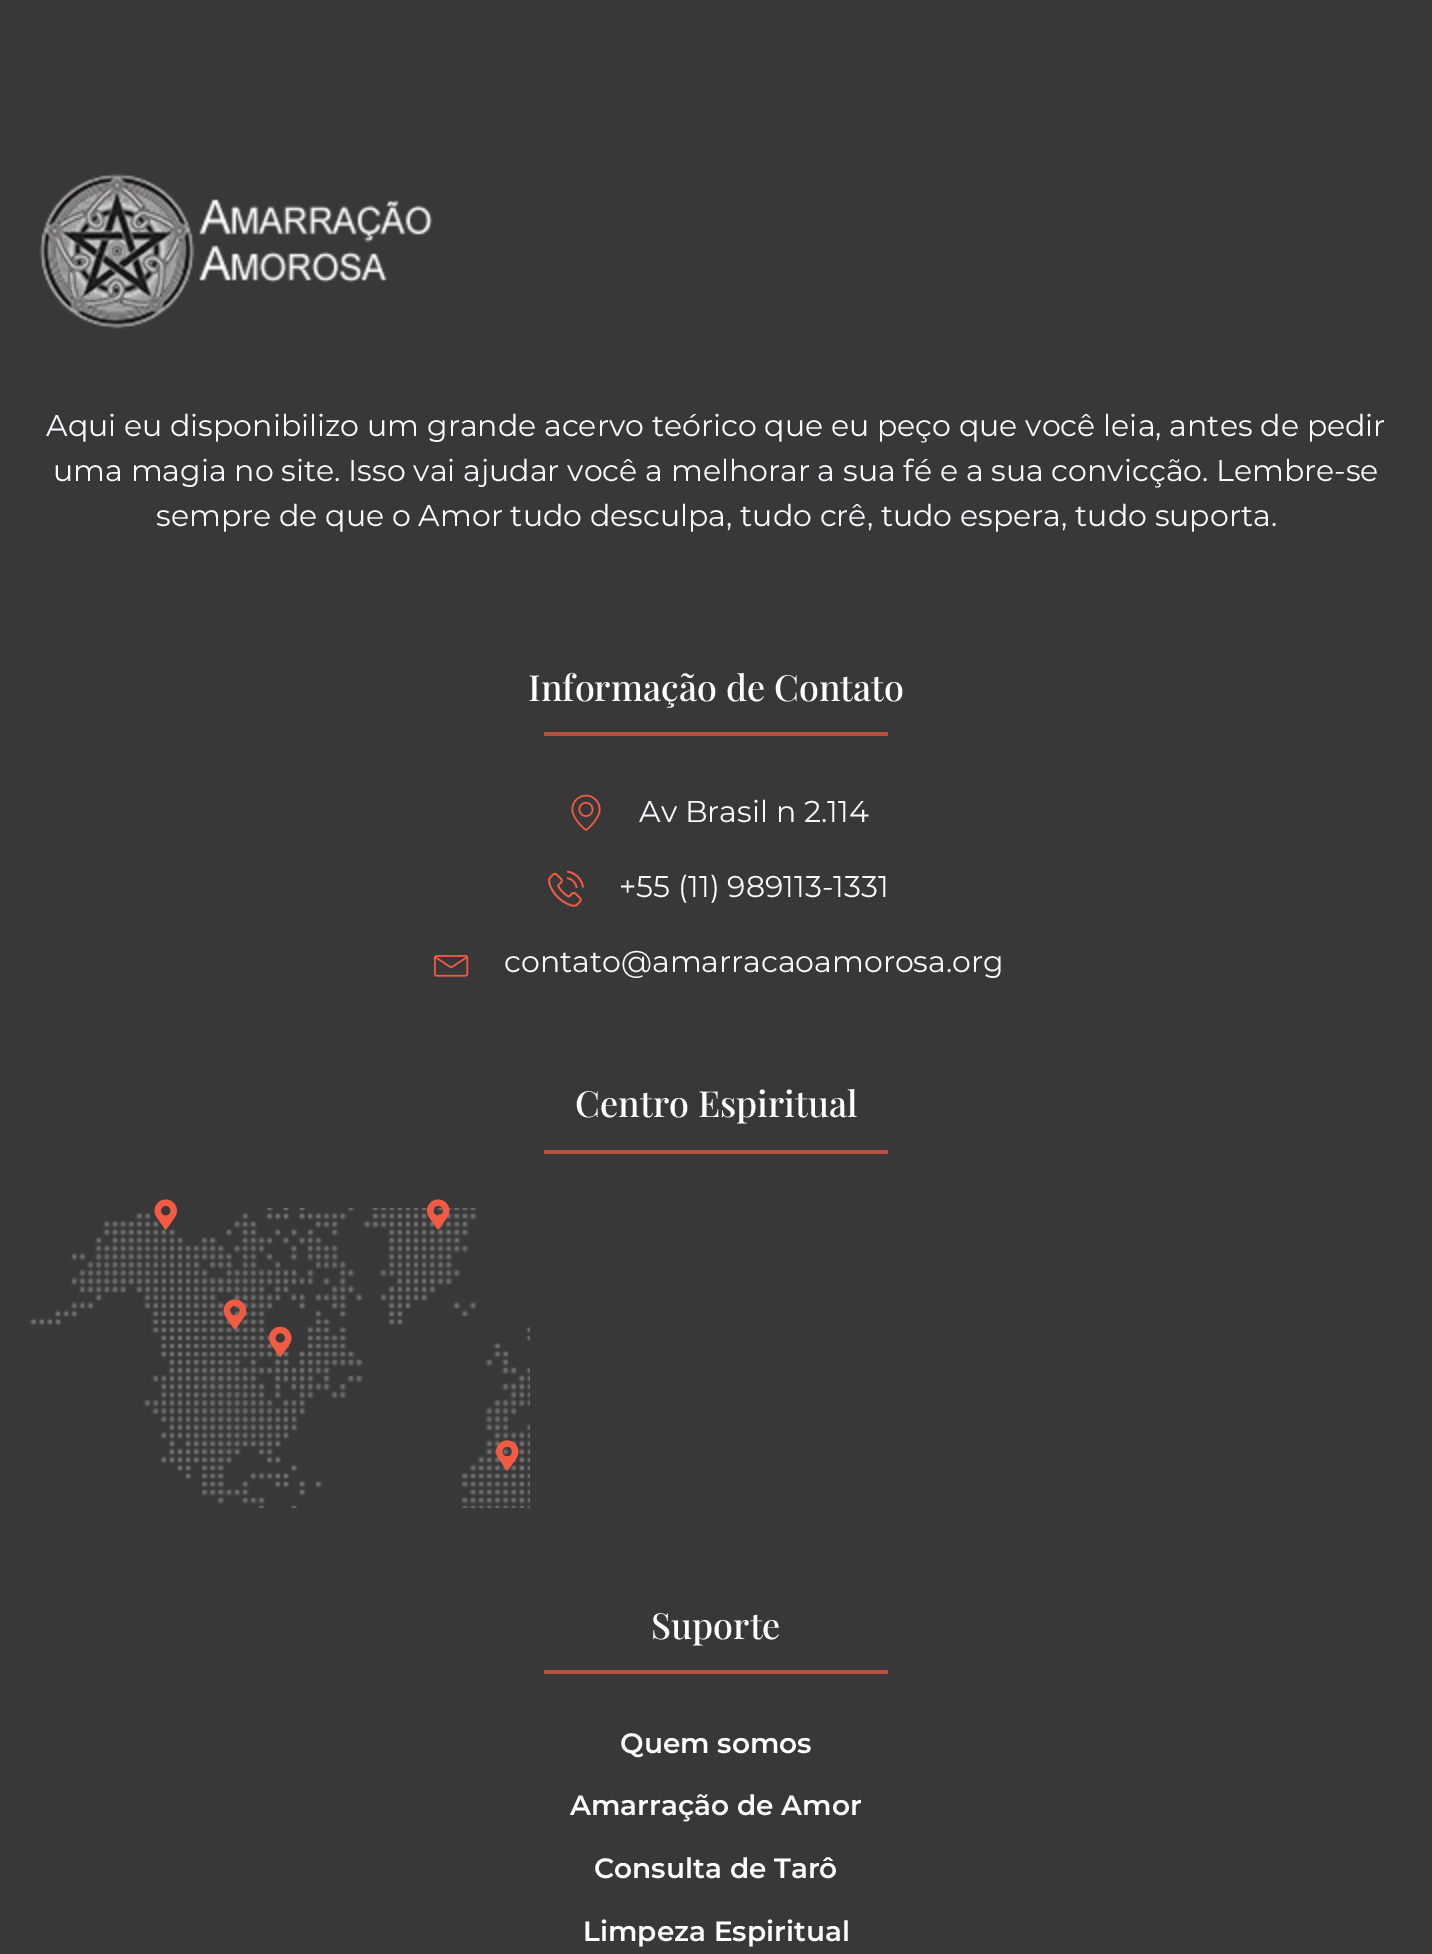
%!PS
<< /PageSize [1432 1954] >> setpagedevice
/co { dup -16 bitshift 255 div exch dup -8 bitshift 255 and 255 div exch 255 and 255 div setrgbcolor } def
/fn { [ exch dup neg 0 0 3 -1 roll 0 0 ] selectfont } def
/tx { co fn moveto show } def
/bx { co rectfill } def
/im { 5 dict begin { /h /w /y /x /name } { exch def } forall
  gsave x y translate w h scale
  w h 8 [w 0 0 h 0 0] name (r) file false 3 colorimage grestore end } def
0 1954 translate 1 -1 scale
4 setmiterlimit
0 0 1432 1954 16#383838 bx
(media/1.raw) 39 173 394 156 im
544 732 344 4 16#B85040 bx
(media/2.raw) 571 794 30 37 im
(media/3.raw) 548 870 36 37 im
(media/4.raw) 434 955 35 22 im
544 1150 344 4 16#B85040 bx
(media/7.raw) 30 1208 500 300 im
(media/5.raw) 154 1199 23 31 im
(media/6.raw) 426 1199 24 31 im
(media/8.raw) 223 1299 24 31 im
(media/9.raw) 269 1326 23 31 im
(media/10.raw) 496 1440 23 31 im
544 1670 344 4 16#B85040 bx
(Aqui eu disponibilizo um grande acervo teórico que eu peço que você leia, antes de pedir) 46 436 /Montserrat-Regular 30 16#F8FAFF tx
(uma magia no site. Isso vai ajudar você a melhorar a sua fé e a sua convicção. Lembre-se) 53 481 /Montserrat-Regular 30 16#F8FAFF tx
(sempre de que o Amor tudo desculpa, tudo crê, tudo espera, tudo suporta.) 156 526 /Montserrat-Regular 30 16#F8FAFF tx
(Informação de Contato) 528 701 /PlayfairDisplay-Medium 36 16#FFFFFF tx
(Av Brasil n 2.114) 639 822 /Montserrat-Regular 30 16#F8FAFF tx
(+55 \(11\) 989113-1331) 619 897 /Montserrat-Regular 30 16#F8FAFF tx
(contato@amarracaoamorosa.org) 504 972 /Montserrat-Regular 30 16#F8FAFF tx
(Centro Espiritual) 575 1117 /PlayfairDisplay-Medium 36 16#FFFFFF tx
(Suporte) 651 1639 /PlayfairDisplay-Medium 36 16#FFFFFF tx
(Quem somos) 620 1753 /Montserrat-SemiBold 28 16#FFFFFF tx
(Amarração de Amor) 570 1815 /Montserrat-SemiBold 28 16#FFFFFF tx
(Consulta de Tarô) 594 1878 /Montserrat-SemiBold 28 16#FFFFFF tx
(Limpeza Espiritual) 583 1941 /Montserrat-SemiBold 28 16#FFFFFF tx
showpage
